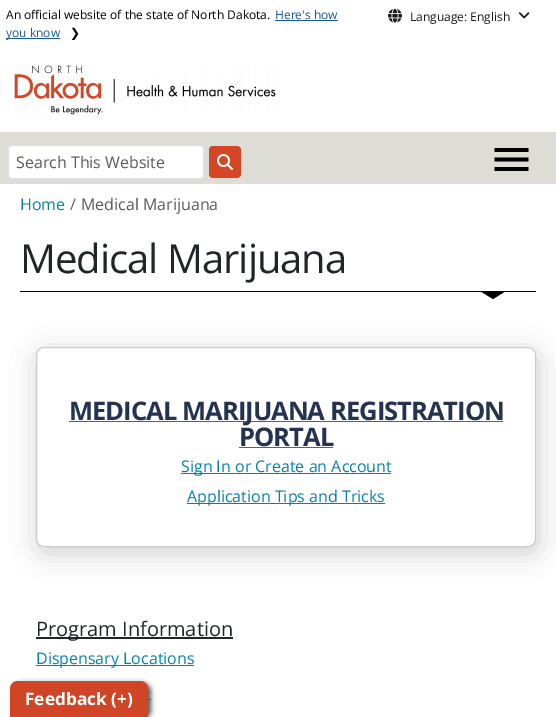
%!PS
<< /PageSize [556 717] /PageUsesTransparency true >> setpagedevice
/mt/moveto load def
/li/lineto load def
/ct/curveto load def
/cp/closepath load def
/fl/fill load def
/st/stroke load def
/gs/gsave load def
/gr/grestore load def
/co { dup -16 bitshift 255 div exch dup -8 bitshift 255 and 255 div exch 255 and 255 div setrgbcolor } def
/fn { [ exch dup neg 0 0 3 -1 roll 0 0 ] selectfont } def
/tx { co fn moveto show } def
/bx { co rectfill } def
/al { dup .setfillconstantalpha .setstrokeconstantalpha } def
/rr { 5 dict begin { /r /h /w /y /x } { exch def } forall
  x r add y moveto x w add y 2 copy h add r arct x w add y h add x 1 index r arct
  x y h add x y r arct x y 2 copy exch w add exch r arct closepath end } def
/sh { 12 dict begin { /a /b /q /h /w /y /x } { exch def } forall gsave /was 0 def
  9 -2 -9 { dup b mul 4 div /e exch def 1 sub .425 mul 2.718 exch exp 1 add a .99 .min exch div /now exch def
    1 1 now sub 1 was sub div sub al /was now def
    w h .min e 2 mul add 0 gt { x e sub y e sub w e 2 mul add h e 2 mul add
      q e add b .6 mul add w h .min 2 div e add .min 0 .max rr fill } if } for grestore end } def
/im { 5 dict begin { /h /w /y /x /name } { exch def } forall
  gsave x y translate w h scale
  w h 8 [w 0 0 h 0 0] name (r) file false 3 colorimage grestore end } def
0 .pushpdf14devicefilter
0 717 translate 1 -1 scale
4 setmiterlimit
0 0 556 717 16#FFFFFF bx
275 20 63 1 16#165C92 bx
6 38 54 1 16#165C92 bx
(media/1.raw) 388 8 14 15 im
(media/2.raw) 518 12 12 7 im
(media/3.raw) 14 65 262 50 im
0 132 556 52 16#DDDDD5 bx
16#FFFFFF co
8.5 145.5 195 33 3.5 rr gs fl gr
16#DEE2E6 co
st
16#D34727 co
209 146 32 32 4 rr fl
(media/4.raw) 217 154 16 16 im
16#000000 co
494.5 171 mt 528.5 171 li 528.5 167 li 494.5 167 li cp 494.5 161.5 mt 528.5 161.5 li 528.5 157.5 li 494.5 157.5 li cp 494.5 148 mt 494.5 152 li 528.5 152 li 528.5 148 li cp fl
20 291 516 1 16#000000 bx
480 291 mt 506 291 li 493 299 li cp fl
16#CCCCCC co
38 353 500 200 8 13.5 1 sh
16#FFFFFF co
36.5 347.5 499 199 7.5 rr gs fl gr
16#CCCCCC co
st
69 421 434 1 16#037FAE bx
239 447 94 1 16#037FAE bx
181 473 210 1 16#037FAE bx
187 503 198 1 16#037FAE bx
36 637 197 2 16#212529 bx
36 665 158 1 16#037FAE bx
148 699 3 1 16#037FAE bx
16#555555 co
13 683 138 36 8 2.5 1 sh
16#CF4526 co
18 681 mt 140 681 li 144.5 681 148 684.5 148 689 ct 148 717 li 10 717 li 10 689 li 10 684.5 13.5 681 18 681 ct cp fl
(An official website of the state of North Dakota.) 6 19 /OpenSans-Regular 12 16#000000 tx
(Here's how) 275 19 /OpenSans-Regular 12 16#165C92 tx
(you know) 6 37 /OpenSans-Regular 12 16#165C92 tx
(❯) 70 37 /DejaVuSans-Regular 12 16#000000 tx
(Language: English) 410 21 /OpenSans-Regular 12 16#1A1A1A tx
(Search This Website) 16 168 /OpenSans-Regular 16 16#595959 tx
(Home) 20 210 /OpenSans-Regular 16 16#037FAE tx
(/) 70 210 /OpenSans-Regular 16 16#595C5F tx
(Medical Marijuana) 81 210 /OpenSans-Regular 16 16#595959 tx
/OpenSans-Regular 40 fn
16#212529 co
20 273 mt -1 0 (Medical Marijuana) ashow
/OpenSans-Bold 25.6 fn
16#243350 co
69 420 mt -1 0 (MEDICAL MARIJUANA REGISTRATION) ashow
239 446 mt -1 0 (PORTAL) ashow
(Sign In or Create an Account) 181 472 /OpenSans-Regular 16 16#037FAE tx
(Application Tips and Tricks) 187 502 /OpenSans-Regular 16 16#037FAE tx
(Program Information) 36 636 /OpenSans-Regular 20 16#212529 tx
(Dispensary Locations) 36 664 /OpenSans-Regular 16 16#037FAE tx
(Feedback \(+\)) 25 705 /OpenSans-Bold 17.25 16#FFFFFF tx
.poppdf14devicefilter showpage
